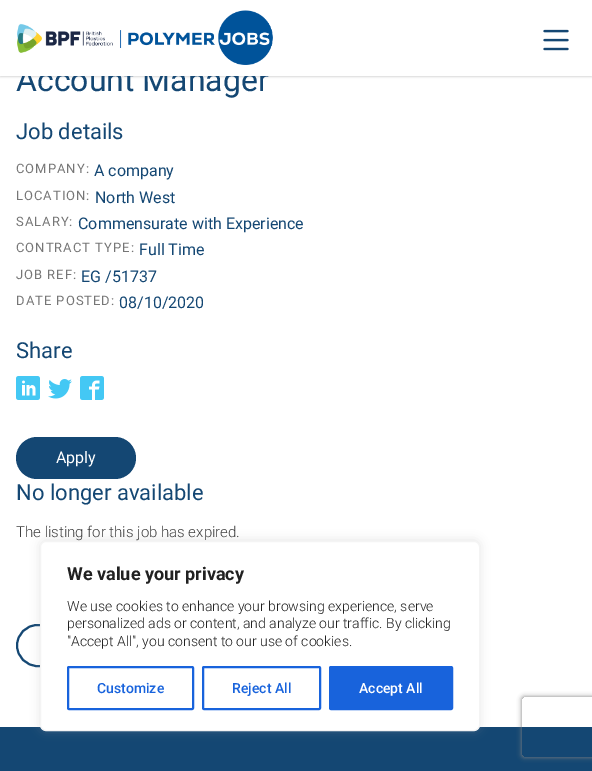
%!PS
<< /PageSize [592 771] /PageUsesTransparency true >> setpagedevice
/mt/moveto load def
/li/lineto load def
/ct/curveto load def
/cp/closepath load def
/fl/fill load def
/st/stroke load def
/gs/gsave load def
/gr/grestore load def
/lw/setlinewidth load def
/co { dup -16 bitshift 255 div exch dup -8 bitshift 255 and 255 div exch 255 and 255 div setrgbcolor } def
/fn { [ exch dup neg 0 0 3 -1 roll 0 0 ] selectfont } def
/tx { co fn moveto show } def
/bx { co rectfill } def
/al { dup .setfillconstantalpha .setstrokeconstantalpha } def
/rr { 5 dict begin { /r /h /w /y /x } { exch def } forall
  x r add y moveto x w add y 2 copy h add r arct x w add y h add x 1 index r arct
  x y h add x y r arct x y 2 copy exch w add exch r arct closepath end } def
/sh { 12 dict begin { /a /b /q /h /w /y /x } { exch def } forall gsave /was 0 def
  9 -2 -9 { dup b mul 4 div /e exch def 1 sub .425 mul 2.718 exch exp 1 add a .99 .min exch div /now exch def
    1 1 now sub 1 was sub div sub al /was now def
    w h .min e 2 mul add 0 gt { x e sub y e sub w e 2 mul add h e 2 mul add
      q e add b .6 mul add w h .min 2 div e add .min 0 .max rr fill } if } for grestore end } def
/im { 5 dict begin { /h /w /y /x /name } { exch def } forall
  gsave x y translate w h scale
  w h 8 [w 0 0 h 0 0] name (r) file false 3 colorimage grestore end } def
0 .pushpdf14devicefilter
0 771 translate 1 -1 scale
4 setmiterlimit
0 0 592 771 16#FFFFFF bx
16#000000 co
0 1 592 76 0 1 .15 sh
(media/3.raw) 16 376 24 24 im
(media/4.raw) 48 379 24 20 im
(media/5.raw) 80 376 24 24 im
16#144773 co
16 437 120 42 21 rr fl
2 lw
17 625 242 41 20.5 rr st
0 727 592 44 16#144773 bx
gs
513 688 mt 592 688 li 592 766 li 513 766 li cp 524 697 mt 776 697 li 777 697 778 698 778 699 ct 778 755 li 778 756 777 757 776 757 ct 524 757 li 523 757 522 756 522 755 ct 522 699 li 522 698 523 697 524 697 ct cp eoclip newpath
16#808080 co
522 697 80 60 2 2.5 1 sh
gr
16#ACABAB co
40 540 440 190 6 5 .3 sh
16#FFFFFF co
40.5 541.5 439 189 5.5 rr gs fl gr
16#F4F4F4 co
1 lw
st
16#1863DC co
2 lw
68 667 125 42 1 rr st
203 667 117 42 1 rr st
330 667 122 42 1 rr gs fl gr
st
(Account Manager) 16 91 /Roboto-Regular 32 16#144773 tx
0 0 592 76 16#FFFFFF bx
(media/2.raw) 543 29 26 22 im
(media/1.raw) 17 10 256 55 im
(Job details) 16 139 /Roboto-Regular 22 16#144773 tx
/Roboto-Regular 13 fn
16#767676 co
16 173 mt 1 0 (COMPANY:) ashow
(A company) 94 176 /Roboto-Regular 16 16#144773 tx
/Roboto-Regular 13 fn
16#767676 co
16 200 mt 1 0 (LOCATION:) ashow
(North West) 95 203 /Roboto-Regular 16 16#144773 tx
/Roboto-Regular 13 fn
16#767676 co
16 226 mt 1 0 (SALARY:) ashow
(Commensurate with Experience) 78 229 /Roboto-Regular 16 16#144773 tx
/Roboto-Regular 13 fn
16#767676 co
16 252 mt 1 0 (CONTRACT TYPE:) ashow
(Full Time) 139 255 /Roboto-Regular 16 16#144773 tx
/Roboto-Regular 13 fn
16#767676 co
16 279 mt 1 0 (JOB REF:) ashow
(EG /51737) 81 282 /Roboto-Regular 16 16#144773 tx
/Roboto-Regular 13 fn
16#767676 co
16 305 mt 1 0 (DATE POSTED:) ashow
(08/10/2020) 119 308 /Roboto-Regular 16 16#144773 tx
(Share) 16 358 /Roboto-Regular 22 16#144773 tx
(Apply) 56 463 /Roboto-Regular 16 16#FFFFFF tx
(No longer available) 16 500 /Roboto-Regular 22 16#144773 tx
(The listing for this job has expired.) 16 537 /Roboto-Light 15 16#3F3F3F tx
(We value your privacy) 67 580 /Roboto-Bold 18 16#212121 tx
(We use cookies to enhance your browsing experience, serve) 67 611 /Roboto-Light 14 16#212121 tx
(personalized ads or content, and analyze our traffic. By clicking) 67 628 /Roboto-Light 14 16#212121 tx
("Accept All", you consent to our use of cookies.) 67 646 /Roboto-Light 14 16#212121 tx
(Customize) 97 693 /Roboto-Medium 14 16#1863DC tx
(Reject All) 232 693 /Roboto-Medium 14 16#1863DC tx
(Accept All) 359 693 /Roboto-Medium 14 16#FFFFFF tx
.poppdf14devicefilter showpage
